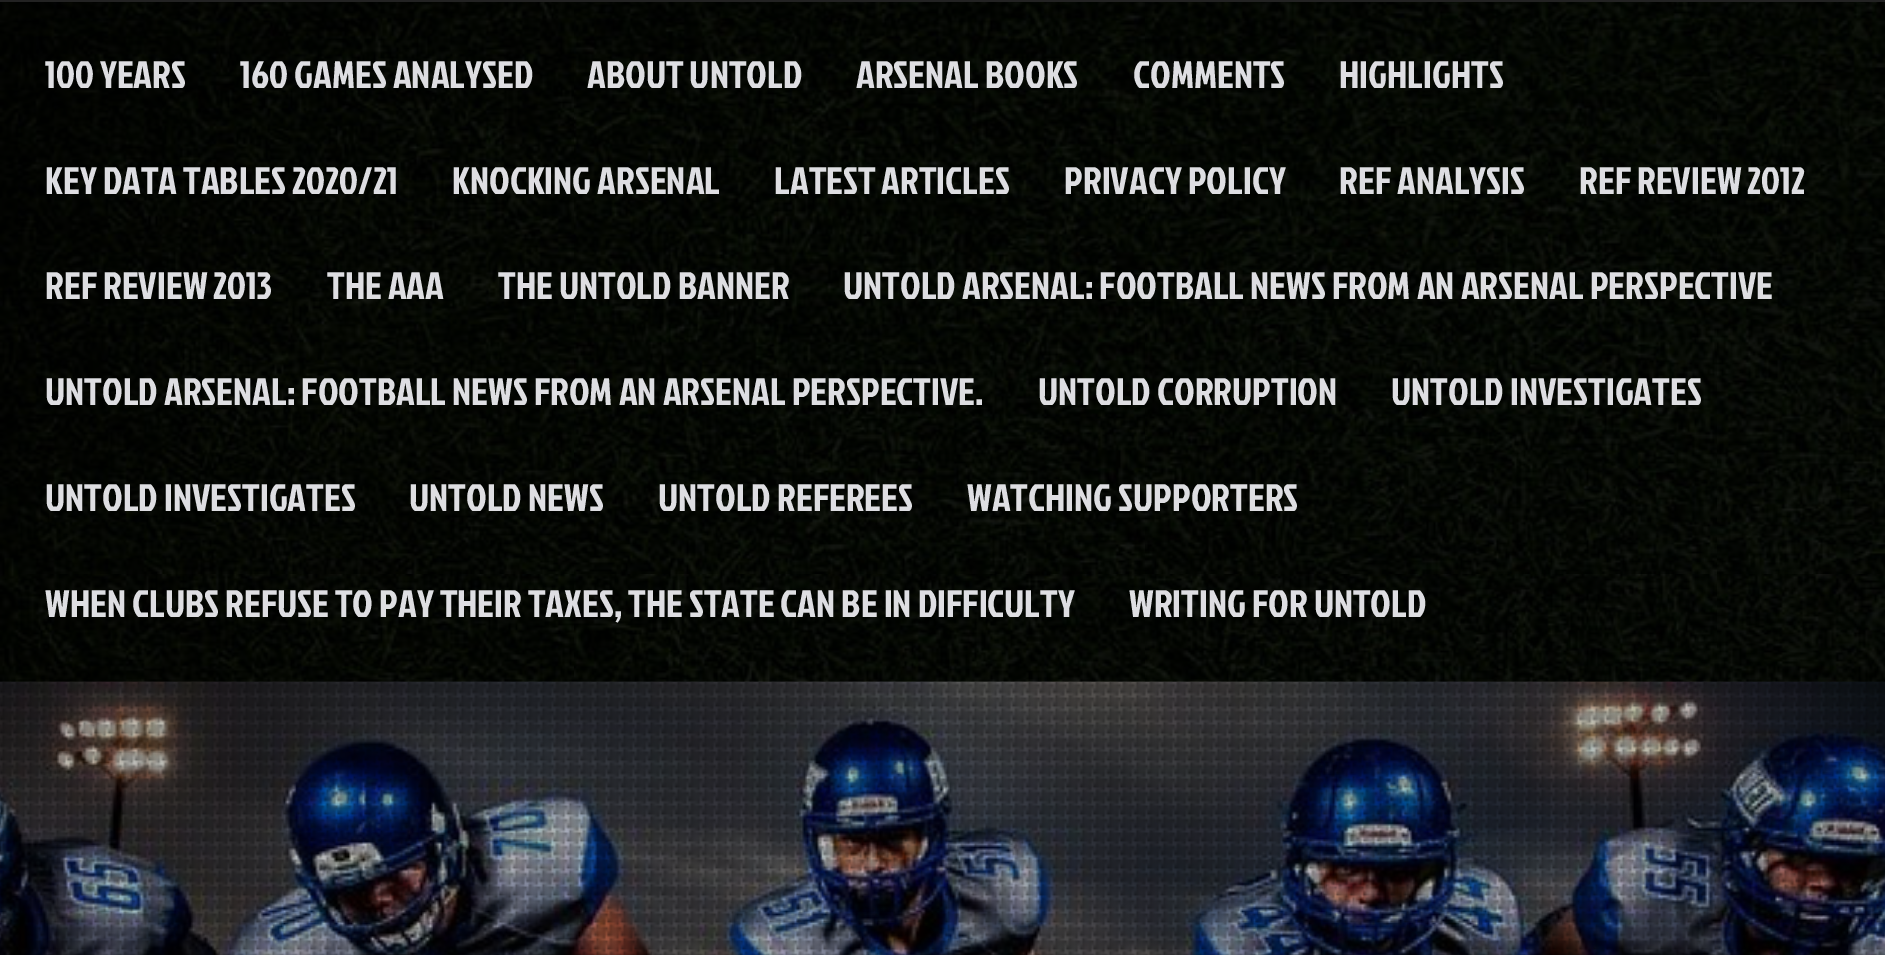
%!PS
<< /PageSize [1885 955] /PageUsesTransparency true >> setpagedevice
/co { dup -16 bitshift 255 div exch dup -8 bitshift 255 and 255 div exch 255 and 255 div setrgbcolor } def
/fn { [ exch dup neg 0 0 3 -1 roll 0 0 ] selectfont } def
/tx { co fn moveto show } def
/bx { co rectfill } def
/al { dup .setfillconstantalpha .setstrokeconstantalpha } def
/im { 5 dict begin { /h /w /y /x /name } { exch def } forall
  gsave x y translate w h scale
  w h 8 [w 0 0 h 0 0] name (r) file false 3 colorimage grestore end } def
0 .pushpdf14devicefilter
0 955 translate 1 -1 scale
4 setmiterlimit
0 0 1885 955 16#FFFFFF bx
(media/1.raw) 0 2 1885 680 im
0.9 al
0 2 1885 680 16#000000 bx
1 al
0 0 1885 2 16#222222 bx
(media/2.raw) 0 681 1885 274 im
(media/3.raw) 0 682 1885 273 im
(100 YEARS) 45 88 /JockeyOne-Regular 38.25 16#DEDEE2 tx
(160 GAMES ANALYSED) 240 88 /JockeyOne-Regular 38.25 16#DEDEE2 tx
(ABOUT UNTOLD) 587 88 /JockeyOne-Regular 38.25 16#DEDEE2 tx
(ARSENAL BOOKS) 856 88 /JockeyOne-Regular 38.25 16#DEDEE2 tx
(COMMENTS) 1133 88 /JockeyOne-Regular 38.25 16#DEDEE2 tx
(HIGHLIGHTS) 1339 88 /JockeyOne-Regular 38.25 16#DEDEE2 tx
(KEY DATA TABLES 2020/21) 45 194 /JockeyOne-Regular 38.25 16#DEDEE2 tx
(KNOCKING ARSENAL) 452 194 /JockeyOne-Regular 38.25 16#DEDEE2 tx
(LATEST ARTICLES) 774 194 /JockeyOne-Regular 38.25 16#DEDEE2 tx
(PRIVACY POLICY) 1064 194 /JockeyOne-Regular 38.25 16#DEDEE2 tx
(REF ANALYSIS) 1339 194 /JockeyOne-Regular 38.25 16#DEDEE2 tx
(REF REVIEW 2012) 1579 194 /JockeyOne-Regular 38.25 16#DEDEE2 tx
(REF REVIEW 2013) 45 299 /JockeyOne-Regular 38.25 16#DEDEE2 tx
(THE AAA) 327 299 /JockeyOne-Regular 38.25 16#DEDEE2 tx
(THE UNTOLD BANNER) 498 299 /JockeyOne-Regular 38.25 16#DEDEE2 tx
(UNTOLD ARSENAL: FOOTBALL NEWS FROM AN ARSENAL PERSPECTIVE) 843 299 /JockeyOne-Regular 38.25 16#DEDEE2 tx
(UNTOLD ARSENAL: FOOTBALL NEWS FROM AN ARSENAL PERSPECTIVE.) 45 405 /JockeyOne-Regular 38.25 16#DEDEE2 tx
(UNTOLD CORRUPTION) 1038 405 /JockeyOne-Regular 38.25 16#DEDEE2 tx
(UNTOLD INVESTIGATES) 1391 405 /JockeyOne-Regular 38.25 16#DEDEE2 tx
(UNTOLD INVESTIGATES) 45 511 /JockeyOne-Regular 38.25 16#DEDEE2 tx
(UNTOLD NEWS) 409 511 /JockeyOne-Regular 38.25 16#DEDEE2 tx
(UNTOLD REFEREES) 658 511 /JockeyOne-Regular 38.25 16#DEDEE2 tx
(WATCHING SUPPORTERS) 967 511 /JockeyOne-Regular 38.25 16#DEDEE2 tx
(WHEN CLUBS REFUSE TO PAY THEIR TAXES, THE STATE CAN BE IN DIFFICULTY) 45 617 /JockeyOne-Regular 38.25 16#DEDEE2 tx
(WRITING FOR UNTOLD) 1129 617 /JockeyOne-Regular 38.25 16#DEDEE2 tx
.poppdf14devicefilter showpage
